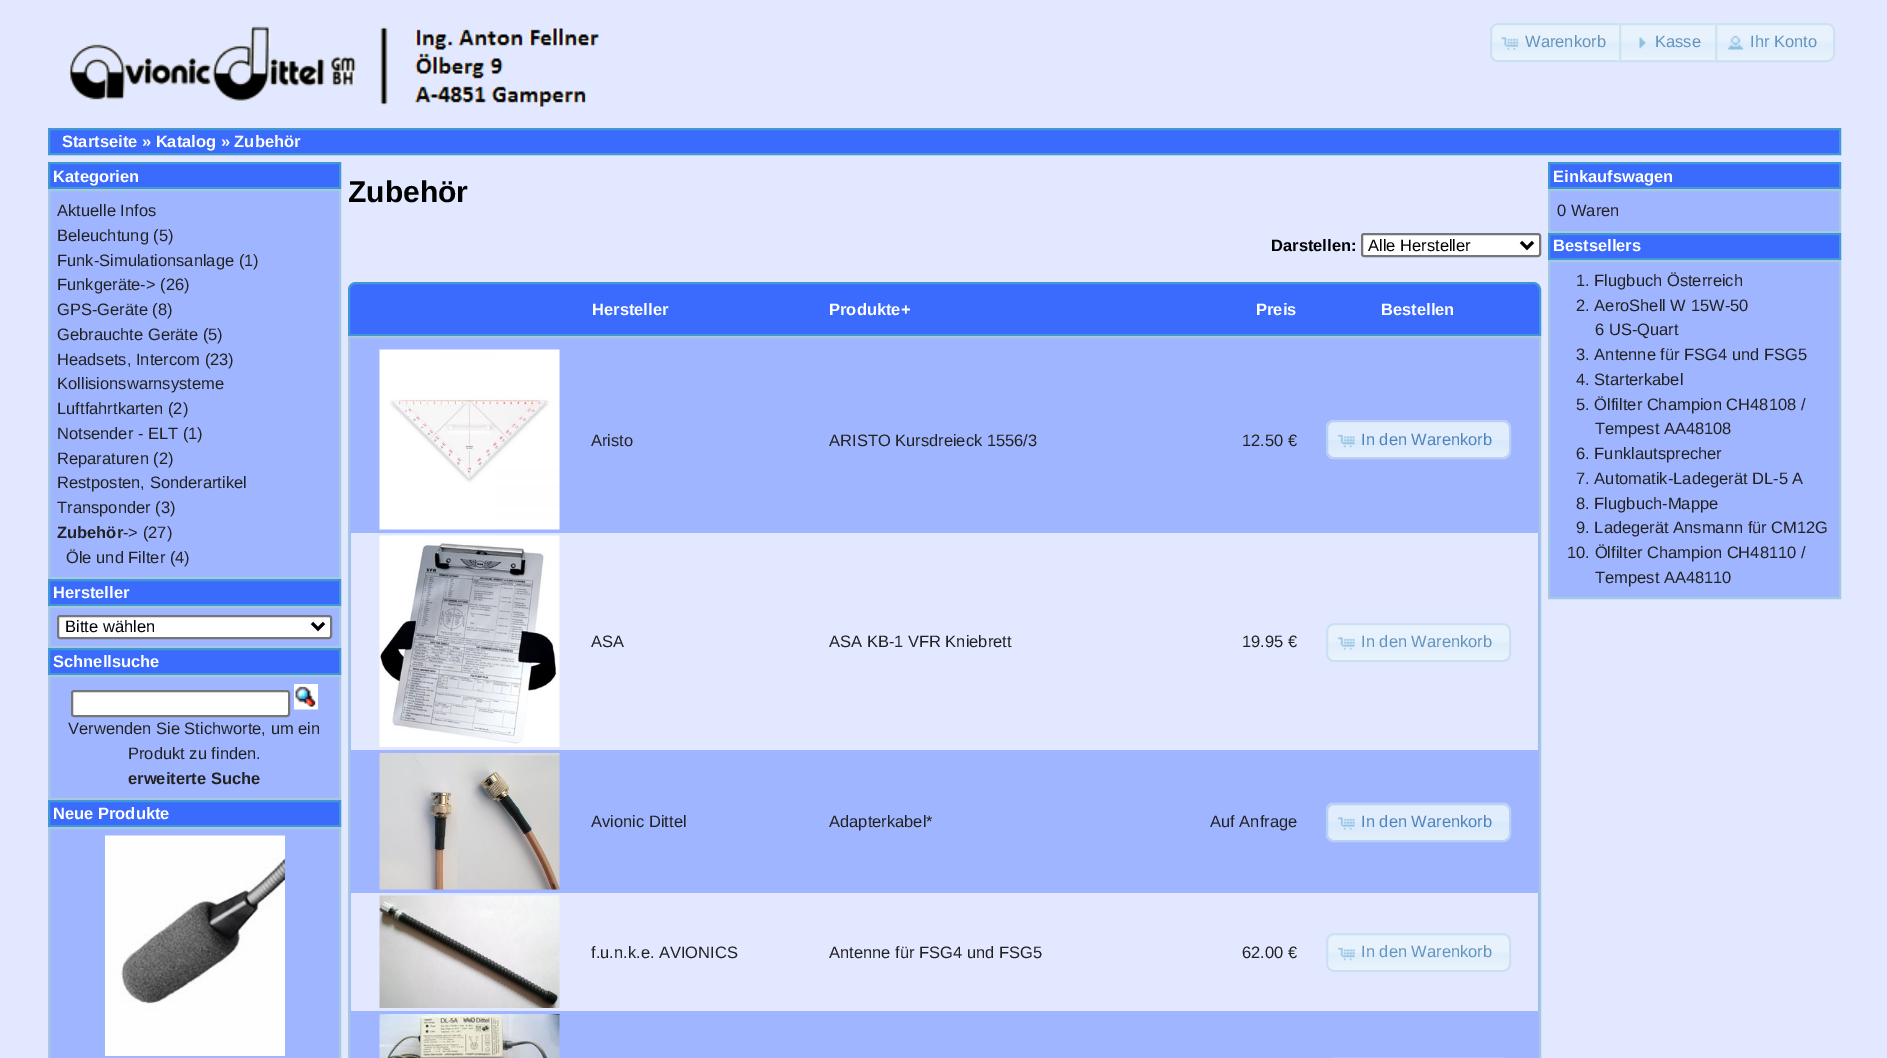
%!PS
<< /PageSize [1887 1058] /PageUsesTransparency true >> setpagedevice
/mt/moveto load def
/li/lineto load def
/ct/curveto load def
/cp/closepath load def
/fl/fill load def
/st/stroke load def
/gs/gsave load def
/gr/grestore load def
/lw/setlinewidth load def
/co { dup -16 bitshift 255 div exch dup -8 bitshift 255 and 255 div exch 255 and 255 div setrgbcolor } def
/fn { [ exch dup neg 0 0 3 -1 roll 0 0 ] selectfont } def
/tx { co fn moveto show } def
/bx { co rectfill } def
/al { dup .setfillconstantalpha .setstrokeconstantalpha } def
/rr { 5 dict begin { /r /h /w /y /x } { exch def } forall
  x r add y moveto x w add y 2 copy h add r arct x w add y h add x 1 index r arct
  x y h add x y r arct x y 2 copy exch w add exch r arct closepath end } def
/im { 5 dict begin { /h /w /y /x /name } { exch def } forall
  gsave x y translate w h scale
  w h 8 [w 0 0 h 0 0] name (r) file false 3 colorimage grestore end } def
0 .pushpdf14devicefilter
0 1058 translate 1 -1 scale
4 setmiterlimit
0 0 1887 1058 16#E1E8FF bx
(media/1.raw) 68 26 531 81 im
(media/2.raw) 1490 23 131 38 im
16#CDDFF2 co
2 lw
1498 24 mt 1622 24 li 1622 61 li 1498 61 li 1494 61 1491 58 1491 54 ct 1491 31 li 1491 27 1494 24 1498 24 ct cp st
(media/3.raw) 1501 37 18 13 im
0.7 al
1619 23 100 39 16#DFEFFC bx
1 al
(media/4.raw) 1618 22 101 40 im
0.7 al
16#C5DBEC co
1620 24 98 37 rectstroke
1 al
(media/5.raw) 1639 37 7 12 im
0.7 al
16#DFEFFC co
1715 23 mt 1827 23 li 1831.5 23 1835 26.5 1835 31 ct 1835 54 li 1835 58.5 1831.5 62 1827 62 ct 1715 62 li cp fl
1 al
(media/6.raw) 1714 23 120 38 im
0.7 al
16#C5DBEC co
1716 24 mt 1827 24 li 1831 24 1834 27 1834 31 ct 1834 54 li 1834 58 1831 61 1827 61 ct 1716 61 li cp st
1 al
(media/7.raw) 1727 35 17 15 im
16#3A6BFC co
49 129 mt 1840 129 li 1840 154 li 49 154 li cp gs fl gr
16#4297D7 co
st
16#3A6BFC co
49 163 mt 340 163 li 340 188 li 49 188 li cp gs fl gr
16#4297D7 co
st
16#A0B5FF co
49 190 mt 340 190 li 340 578 li 49 578 li cp gs fl gr
16#A6C9E2 co
st
16#3A6BFC co
49 580 mt 340 580 li 340 605 li 49 605 li cp gs fl gr
16#4297D7 co
st
16#A0B5FF co
49 607 mt 340 607 li 340 647 li 49 647 li cp gs fl gr
16#A6C9E2 co
st
16#FFFFFF co
58 616 273 22 2 rr gs fl gr
16#767676 co
st
16#000000 co
3 lw
312 623 mt 318 629 li 324 623 li st
16#3A6BFC co
49 649 mt 340 649 li 340 674 li 49 674 li cp gs fl gr
16#4297D7 co
2 lw
st
16#A0B5FF co
49 676 mt 340 676 li 340 799 li 49 799 li cp gs fl gr
16#A6C9E2 co
st
16#FFFFFF co
72 691 217 25 2 rr gs fl gr
16#767676 co
st
(media/8.raw) 294 684 24 26 im
16#3A6BFC co
49 801 mt 340 801 li 340 826 li 49 826 li cp gs fl gr
16#4297D7 co
st
16#A0B5FF co
49 828 mt 340 828 li 340 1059 li 49 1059 li cp gs fl gr
16#A6C9E2 co
st
(media/9.raw) 105 835 180 221 im
16#FFFFFF co
1362 234 178 22 2 rr gs fl gr
16#767676 co
st
16#000000 co
3 lw
1521 242 mt 1527 248 li 1533 242 li st
16#3A6BFC co
356 283 mt 1533 283 li 1537 283 1540 286 1540 290 ct 1540 335 li 349 335 li 349 290 li 349 286 352 283 356 283 ct cp gs fl gr
16#4297D7 co
2 lw
st
16#A0B5FF co
349 337 mt 1540 337 li 1540 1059 li 349 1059 li cp gs fl gr
16#A6C9E2 co
st
(media/10.raw) 379 349 181 181 im
(media/11.raw) 1326 420 185 39 im
16#BAD0F2 co
1327 421 183 37 7 rr st
(media/12.raw) 1337 434 18 14 im
351 533 1187 217 16#E1E8FF bx
(media/13.raw) 379 535 181 212 im
(media/14.raw) 1326 623 184 38 im
16#CDDFF2 co
1327 624 183 37 7 rr st
(media/15.raw) 1337 637 18 13 im
(media/16.raw) 379 753 181 137 im
(media/17.raw) 1326 802 185 40 im
16#BAD0F2 co
1327 804 183 37 7 rr st
(media/18.raw) 1337 817 18 13 im
351 893 1187 118 16#E1E8FF bx
(media/19.raw) 379 895 181 113 im
(media/20.raw) 1326 933 184 39 im
16#CDDFF2 co
1327 934 183 37 7 rr st
(media/21.raw) 1337 947 18 14 im
(media/22.raw) 379 1014 181 44 im
(media/23.raw) 1331 1057 174 1 im
16#3A6BFC co
1549 163 mt 1840 163 li 1840 188 li 1549 188 li cp gs fl gr
16#4297D7 co
st
16#A0B5FF co
1549 190 mt 1840 190 li 1840 232 li 1549 232 li cp gs fl gr
16#A6C9E2 co
st
16#3A6BFC co
1549 234 mt 1840 234 li 1840 259 li 1549 259 li cp gs fl gr
16#4297D7 co
st
16#A0B5FF co
1549 261 mt 1840 261 li 1840 598 li 1549 598 li cp gs fl gr
16#A6C9E2 co
st
(Warenkorb) 1525 47 /LiberationSans-Regular 16.5 16#6493BB tx
(Kasse) 1655 47 /LiberationSans-Regular 16.5 16#6493BB tx
(Ihr Konto) 1750 47 /LiberationSans-Regular 16.5 16#6493BB tx
(Startseite » Katalog » Zubehör) 62 147 /LiberationSans-Bold 16.5 16#FFFFFF tx
(Kategorien) 53 182 /LiberationSans-Bold 16.5 16#FFFFFF tx
(Aktuelle Infos) 57 216 /LiberationSans-Regular 16.5 16#222222 tx
(Beleuchtung \(5\)) 57 241 /LiberationSans-Regular 16.5 16#222222 tx
(Funk-Simulationsanlage \(1\)) 57 266 /LiberationSans-Regular 16.5 16#222222 tx
(Funkgeräte-> \(26\)) 57 290 /LiberationSans-Regular 16.5 16#222222 tx
(GPS-Geräte \(8\)) 57 315 /LiberationSans-Regular 16.5 16#222222 tx
(Gebrauchte Geräte \(5\)) 57 340 /LiberationSans-Regular 16.5 16#222222 tx
(Headsets, Intercom \(23\)) 57 365 /LiberationSans-Regular 16.5 16#222222 tx
(Kollisionswarnsysteme) 57 389 /LiberationSans-Regular 16.5 16#222222 tx
(Luftfahrtkarten \(2\)) 57 414 /LiberationSans-Regular 16.5 16#222222 tx
(Notsender - ELT \(1\)) 57 439 /LiberationSans-Regular 16.5 16#222222 tx
(Reparaturen \(2\)) 57 464 /LiberationSans-Regular 16.5 16#222222 tx
(Restposten, Sonderartikel) 57 488 /LiberationSans-Regular 16.5 16#222222 tx
(Transponder \(3\)) 57 513 /LiberationSans-Regular 16.5 16#222222 tx
(Zubehör) 57 538 /LiberationSans-Bold 16.5 16#222222 tx
(-> \(27\)) 123 538 /LiberationSans-Regular 16.5 16#222222 tx
(Öle und Filter \(4\)) 66 563 /LiberationSans-Regular 16.5 16#222222 tx
(Hersteller) 53 598 /LiberationSans-Bold 16.5 16#FFFFFF tx
(Bitte wählen) 65 632 /LiberationSans-Regular 16.5 16#000000 tx
(Schnellsuche) 53 667 /LiberationSans-Bold 16.5 16#FFFFFF tx
(Verwenden Sie Stichworte, um ein) 68 734 /LiberationSans-Regular 16.5 16#222222 tx
(Produkt zu finden.) 128 759 /LiberationSans-Regular 16.5 16#222222 tx
(erweiterte Suche) 128 784 /LiberationSans-Bold 16.5 16#222222 tx
(Neue Produkte) 53 819 /LiberationSans-Bold 16.5 16#FFFFFF tx
(Zubehör) 348 202 /LiberationSans-Bold 30 16#000000 tx
(Darstellen:) 1271 251 /LiberationSans-Bold 16.5 16#000000 tx
(Alle Hersteller) 1368 251 /LiberationSans-Regular 16.5 16#000000 tx
(Hersteller) 592 315 /LiberationSans-Bold 16.5 16#FFFFFF tx
(Produkte+) 829 315 /LiberationSans-Bold 16.5 16#FFFFFF tx
(Preis) 1256 315 /LiberationSans-Bold 16.5 16#FFFFFF tx
(Bestellen) 1381 315 /LiberationSans-Bold 16.5 16#FFFFFF tx
(Aristo) 591 446 /LiberationSans-Regular 16.5 16#222222 tx
(ARISTO Kursdreieck 1556/3) 829 446 /LiberationSans-Regular 16.5 16#222222 tx
(12.50 €) 1242 446 /LiberationSans-Regular 16.5 16#222222 tx
(In den Warenkorb) 1361 445 /LiberationSans-Regular 16.5 16#5083BB tx
(ASA) 591 647 /LiberationSans-Regular 16.5 16#222222 tx
(ASA KB-1 VFR Kniebrett) 829 647 /LiberationSans-Regular 16.5 16#222222 tx
(19.95 €) 1242 647 /LiberationSans-Regular 16.5 16#222222 tx
(In den Warenkorb) 1361 647 /LiberationSans-Regular 16.5 16#6493BB tx
(Avionic Dittel) 591 827 /LiberationSans-Regular 16.5 16#222222 tx
(Adapterkabel*) 829 827 /LiberationSans-Regular 16.5 16#222222 tx
(Auf Anfrage) 1210 827 /LiberationSans-Regular 16.5 16#222222 tx
(In den Warenkorb) 1361 827 /LiberationSans-Regular 16.5 16#5083BB tx
(f.u.n.k.e. AVIONICS) 591 958 /LiberationSans-Regular 16.5 16#222222 tx
(Antenne für FSG4 und FSG5) 829 958 /LiberationSans-Regular 16.5 16#222222 tx
(62.00 €) 1242 958 /LiberationSans-Regular 16.5 16#222222 tx
(In den Warenkorb) 1361 957 /LiberationSans-Regular 16.5 16#6493BB tx
(Einkaufswagen) 1553 182 /LiberationSans-Bold 16.5 16#FFFFFF tx
(0 Waren) 1557 216 /LiberationSans-Regular 16.5 16#222222 tx
(Bestsellers) 1553 251 /LiberationSans-Bold 16.5 16#FFFFFF tx
(1. Flugbuch Österreich) 1576 286 /LiberationSans-Regular 16.5 16#222222 tx
(2. AeroShell W 15W-50) 1576 311 /LiberationSans-Regular 16.5 16#222222 tx
(6 US-Quart) 1595 335 /LiberationSans-Regular 16.5 16#222222 tx
(3. Antenne für FSG4 und FSG5) 1576 360 /LiberationSans-Regular 16.5 16#222222 tx
(4. Starterkabel) 1576 385 /LiberationSans-Regular 16.5 16#222222 tx
(5. Ölfilter Champion CH48108 /) 1576 410 /LiberationSans-Regular 16.5 16#222222 tx
(Tempest AA48108) 1595 434 /LiberationSans-Regular 16.5 16#222222 tx
(6. Funklautsprecher) 1576 459 /LiberationSans-Regular 16.5 16#222222 tx
(7. Automatik-Ladegerät DL-5 A) 1576 484 /LiberationSans-Regular 16.5 16#222222 tx
(8. Flugbuch-Mappe) 1576 509 /LiberationSans-Regular 16.5 16#222222 tx
(9. Ladegerät Ansmann für CM12G) 1576 533 /LiberationSans-Regular 16.5 16#222222 tx
(10. Ölfilter Champion CH48110 /) 1567 558 /LiberationSans-Regular 16.5 16#222222 tx
(Tempest AA48110) 1595 583 /LiberationSans-Regular 16.5 16#222222 tx
.poppdf14devicefilter showpage
